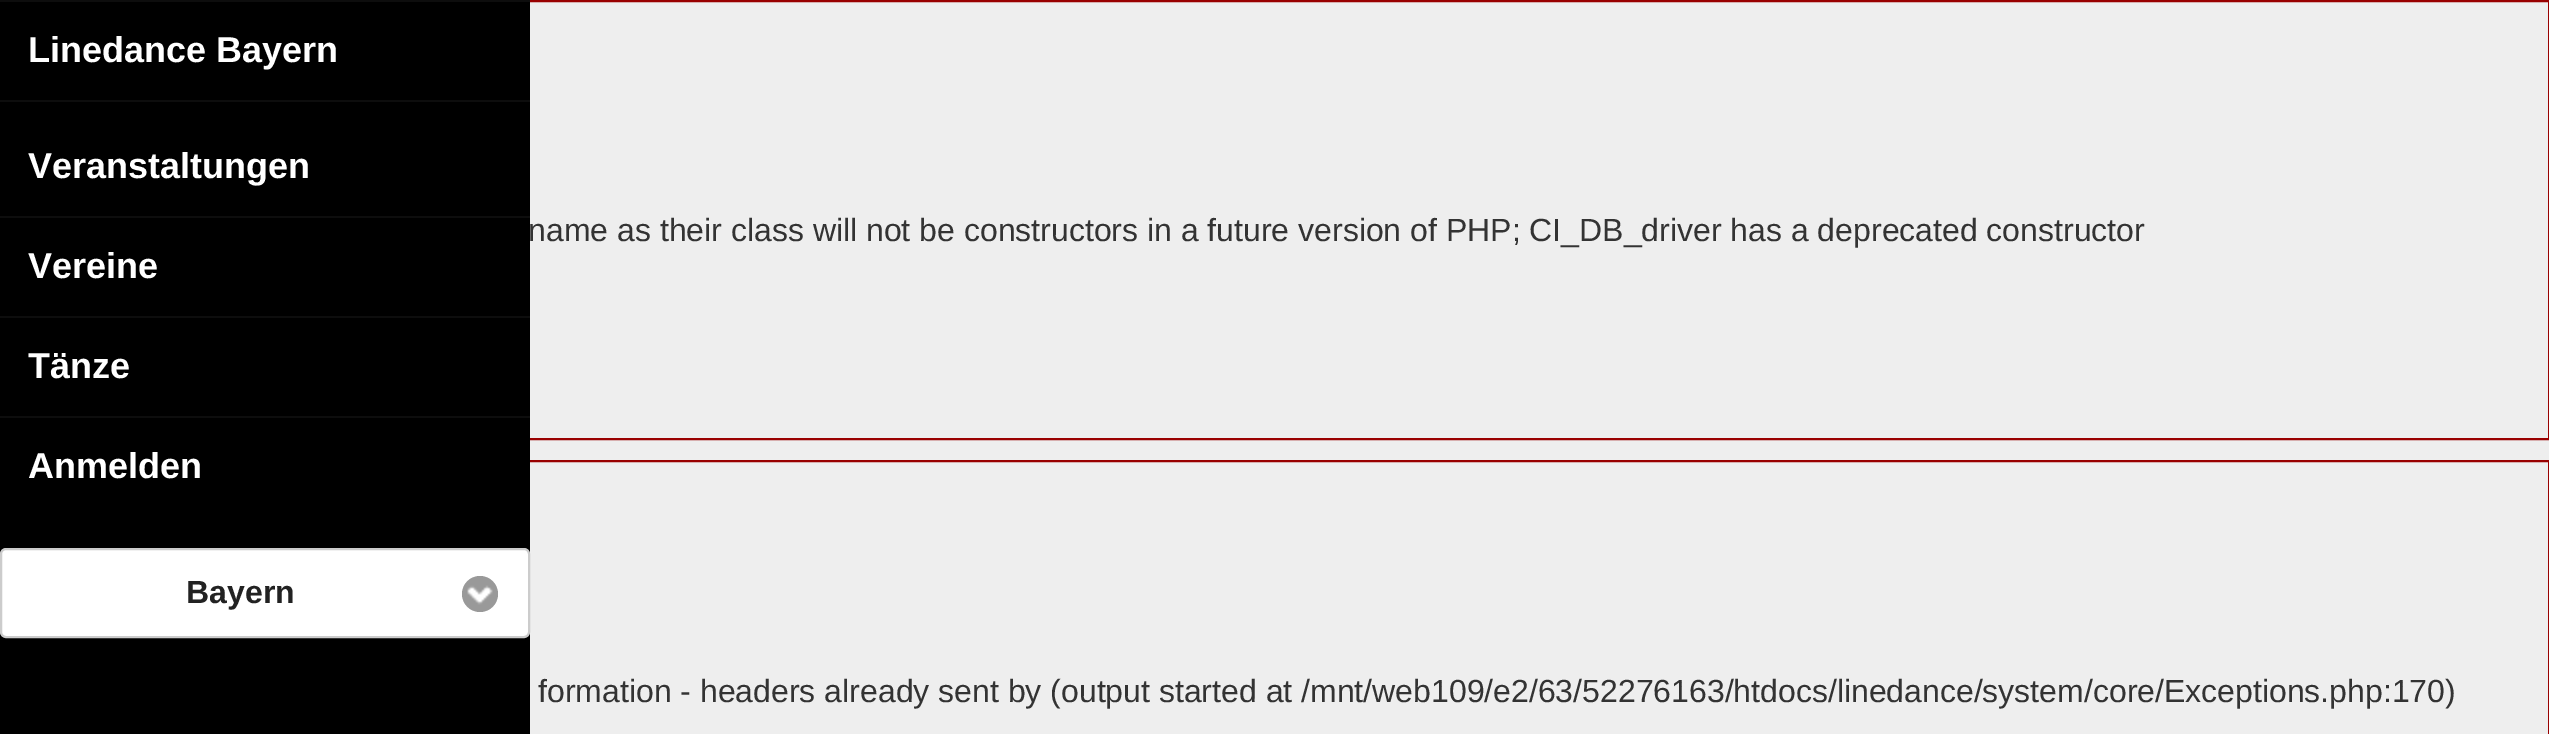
%!PS
<< /PageSize [2549 734] >> setpagedevice
/fl/fill load def
/st/stroke load def
/gs/gsave load def
/gr/grestore load def
/lw/setlinewidth load def
/co { dup -16 bitshift 255 div exch dup -8 bitshift 255 and 255 div exch 255 and 255 div setrgbcolor } def
/fn { [ exch dup neg 0 0 3 -1 roll 0 0 ] selectfont } def
/tx { co fn moveto show } def
/bx { co rectfill } def
/ci { newpath 0 360 arc closepath } def
/rr { 5 dict begin { /r /h /w /y /x } { exch def } forall
  x r add y moveto x w add y 2 copy h add r arct x w add y h add x 1 index r arct
  x y h add x y r arct x y 2 copy exch w add exch r arct closepath end } def
/im { 5 dict begin { /h /w /y /x /name } { exch def } forall
  gsave x y translate w h scale
  w h 8 [w 0 0 h 0 0] name (r) file false 3 colorimage grestore end } def
0 734 translate 1 -1 scale
4 setmiterlimit
0 0 2549 734 16#EEEEEE bx
16#990000 co
2 lw
1 1 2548 438 rectstroke
0 0 530 2 16#0D0D0D bx
16#990000 co
1 461 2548 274 rectstroke
(name as their class will not be constructors in a future version of PHP; CI_DB_driver has a deprecated constructor) 528 241 /LiberationSans-Regular 32 16#333333 tx
0 2 530 732 16#000000 bx
16#FFFFFF co
1 549 528 88 5 rr gs fl gr
16#CCCCCC co
st
(Bayern) 186 603 /LiberationSans-Bold 32 16#222222 tx
16#999999 co
480 594 18 ci fl
(media/1.raw) 467 585 26 20 im
(Anmelden) 28 478 /LiberationSans-Bold 36 16#FFFFFF tx
0 416 530 2 16#0D0D0D bx
(Tänze) 28 378 /LiberationSans-Bold 36 16#FFFFFF tx
0 316 530 2 16#0D0D0D bx
(Vereine) 28 278 /LiberationSans-Bold 36 16#FFFFFF tx
0 216 530 2 16#0D0D0D bx
(Veranstaltungen) 28 178 /LiberationSans-Bold 36 16#FFFFFF tx
0 100 530 2 16#0D0D0D bx
(Linedance Bayern) 28 62 /LiberationSans-Bold 36 16#FFFFFF tx
(formation - headers already sent by \(output started at /mnt/web109/e2/63/52276163/htdocs/linedance/system/core/Exceptions.php:170\)) 538 702 /LiberationSans-Regular 32 16#333333 tx
showpage
